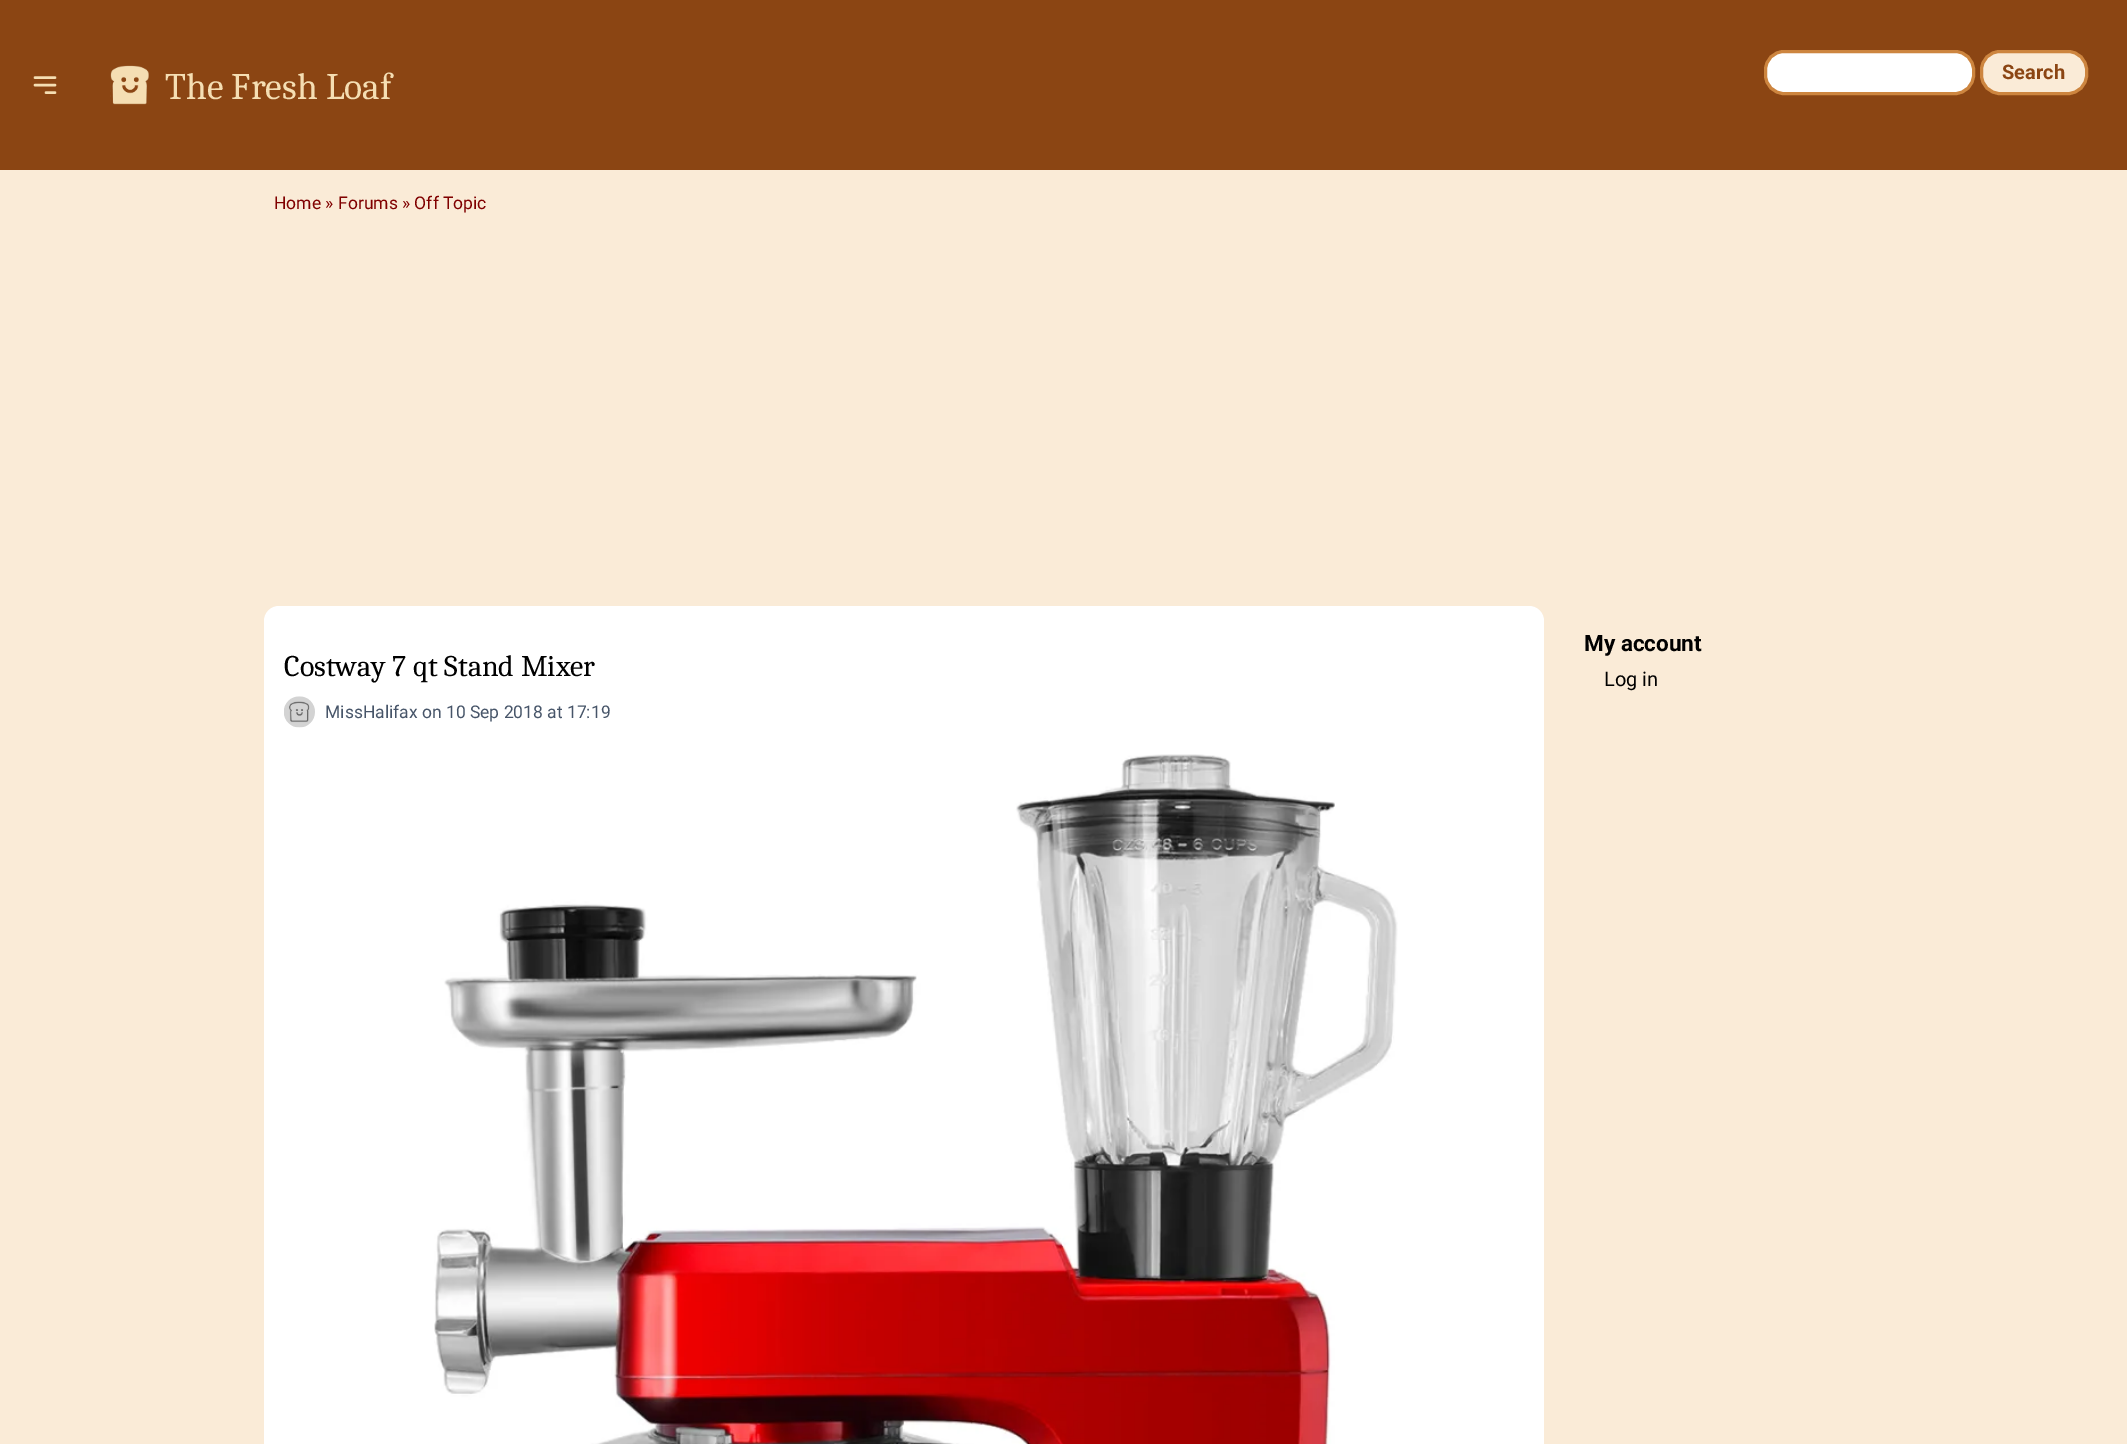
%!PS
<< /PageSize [2127 1444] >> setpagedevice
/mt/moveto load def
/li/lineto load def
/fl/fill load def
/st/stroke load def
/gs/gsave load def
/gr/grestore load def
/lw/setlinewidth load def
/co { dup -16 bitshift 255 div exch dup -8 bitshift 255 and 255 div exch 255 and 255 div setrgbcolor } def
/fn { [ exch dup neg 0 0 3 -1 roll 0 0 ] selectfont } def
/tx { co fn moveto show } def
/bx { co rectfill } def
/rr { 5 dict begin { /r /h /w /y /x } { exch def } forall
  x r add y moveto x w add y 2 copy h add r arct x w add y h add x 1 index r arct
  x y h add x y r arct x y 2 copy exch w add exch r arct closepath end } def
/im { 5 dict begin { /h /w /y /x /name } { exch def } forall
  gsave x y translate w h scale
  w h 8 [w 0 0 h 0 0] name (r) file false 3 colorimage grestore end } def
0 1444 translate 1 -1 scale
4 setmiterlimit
0 0 2127 1444 16#FAEBD7 bx
0 0 2127 170 16#8B4513 bx
16#F5DEB3 co
2.5 lw
1 setlinecap
1 setlinejoin
35 77.5 mt 55 77.5 li 35 85 mt 55 85 li 46 92.5 mt 55 92.5 li st
(media/1.raw) 110 65 39 40 im
16#FFFFFF co
1765.5 51.5 208 42 18.5 rr gs fl gr
16#CD853F co
3 lw
0 setlinecap
0 setlinejoin
st
16#FAEBD7 co
1981.5 51.5 105 42 18.5 rr gs fl gr
16#CD853F co
st
16#FFFFFF co
264 606 1280 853 15 rr fl
(media/2.raw) 284 696 31 32 im
(media/3.raw) 434 754 964 690 im
(The Fresh Loaf) 165 99 /Caladea-Regular 37.5 16#F5DEB3 tx
(Search) 2002 79 /Roboto-Bold 20 16#8B4513 tx
(Home » Forums » Off Topic) 274 209 /Roboto-Regular 17.5 16#800000 tx
(Costway 7 qt Stand Mixer) 284 676 /Caladea-Regular 30 16#000000 tx
(MissHalifax on 10 Sep 2018 at 17:19) 325 718 /Roboto-Regular 17.5 16#475569 tx
(My account) 1584 651 /Roboto-Bold 22.5 16#000000 tx
(Log in) 1604 686 /Roboto-Regular 20 16#000000 tx
showpage
